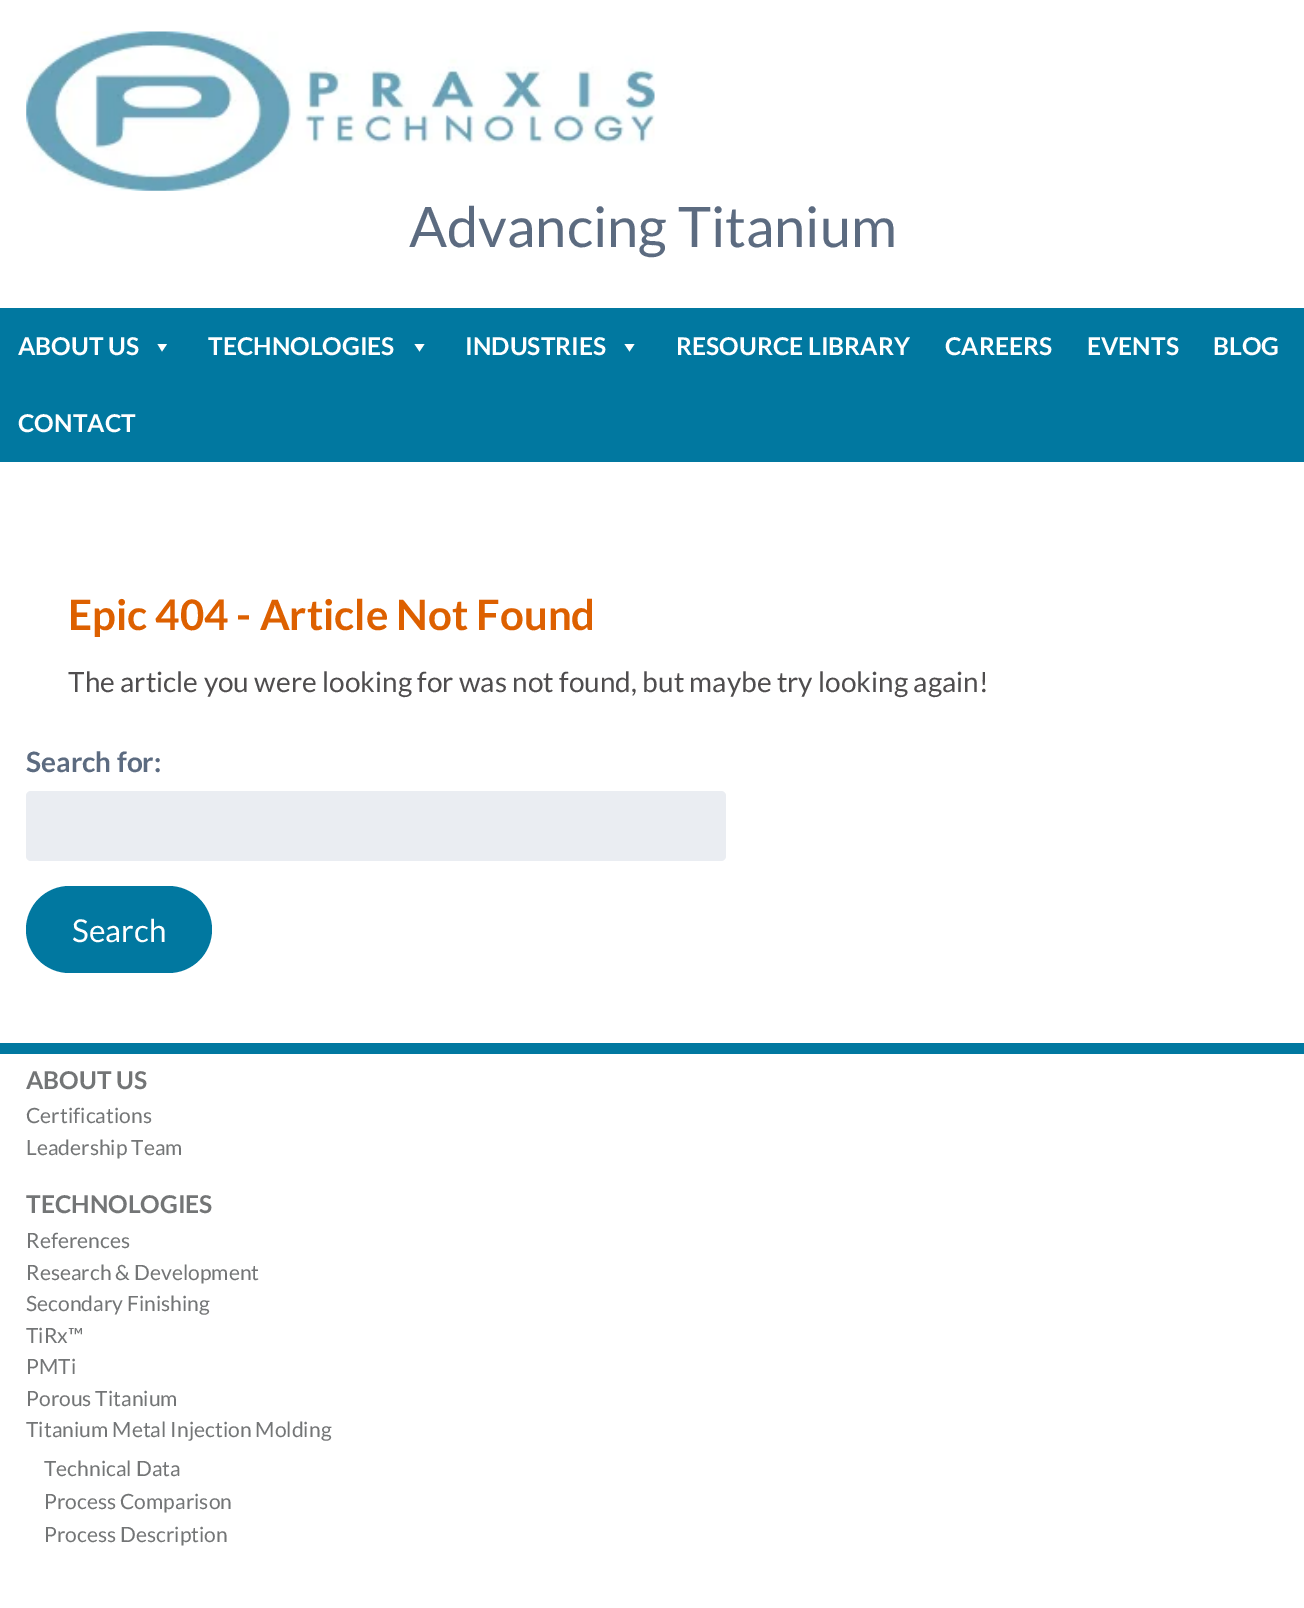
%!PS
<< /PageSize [1304 1608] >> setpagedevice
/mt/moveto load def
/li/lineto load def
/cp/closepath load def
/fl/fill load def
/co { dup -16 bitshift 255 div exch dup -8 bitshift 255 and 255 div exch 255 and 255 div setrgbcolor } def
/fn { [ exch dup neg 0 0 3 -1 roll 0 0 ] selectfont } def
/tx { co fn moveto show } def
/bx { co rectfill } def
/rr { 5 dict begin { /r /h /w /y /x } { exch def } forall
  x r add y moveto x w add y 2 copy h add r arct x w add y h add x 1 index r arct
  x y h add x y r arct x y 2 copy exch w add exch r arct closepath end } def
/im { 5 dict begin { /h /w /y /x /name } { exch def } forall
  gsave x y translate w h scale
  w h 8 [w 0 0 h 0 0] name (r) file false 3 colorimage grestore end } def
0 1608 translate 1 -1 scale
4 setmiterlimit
0 0 1304 1608 16#FFFFFF bx
(media/1.raw) 26 31 629 160 im
0 308 1304 154 16#0178A0 bx
16#FFFFFF co
167 344 mt 162 351.5 li 157.5 344 li cp fl
424.5 344 mt 419.5 351.5 li 414.5 344 li cp fl
634.5 344 mt 629.5 351.5 li 624.5 344 li cp fl
16#EAEDF2 co
26 791 700 70 5 rr fl
16#0178A0 co
26 886 186 87 43.5 rr fl
0 1043 1304 11 16#0178A0 bx
(Advancing Titanium) 409 247 /Lato-Regular 56 16#5C6B80 tx
(ABOUT US) 18 355 /Lato-Bold 24.5 16#FFFFFF tx
(TECHNOLOGIES) 208 355 /Lato-Bold 24.5 16#FFFFFF tx
(INDUSTRIES) 465 355 /Lato-Bold 24.5 16#FFFFFF tx
(RESOURCE LIBRARY) 676 355 /Lato-Bold 24.5 16#FFFFFF tx
(CAREERS) 945 355 /Lato-Bold 24.5 16#FFFFFF tx
(EVENTS) 1087 355 /Lato-Bold 24.5 16#FFFFFF tx
(BLOG) 1213 355 /Lato-Bold 24.5 16#FFFFFF tx
(CONTACT) 18 432 /Lato-Bold 24.5 16#FFFFFF tx
(Epic 404 - Article Not Found) 68 630 /Lato-Bold 42 16#DD6000 tx
(The article you were looking for was not found, but maybe try looking again!) 68 692 /Lato-Regular 28 16#4F4D4E tx
(Search for:) 26 772 /Lato-Bold 28 16#5C6B80 tx
(Search) 72 942 /Lato-Regular 31.5 16#FFFFFF tx
(ABOUT US) 26 1089 /Lato-Bold 24.5 16#737576 tx
(Certifications) 26 1123 /Lato-Regular 21 16#737576 tx
(Leadership Team) 26 1155 /Lato-Regular 21 16#737576 tx
(TECHNOLOGIES) 26 1213 /Lato-Bold 24.5 16#737576 tx
(References) 26 1248 /Lato-Regular 21 16#737576 tx
(Research & Development) 26 1280 /Lato-Regular 21 16#737576 tx
(Secondary Finishing) 26 1311 /Lato-Regular 21 16#737576 tx
(TiRx™) 26 1343 /Lato-Regular 21 16#737576 tx
(PMTi) 26 1374 /Lato-Regular 21 16#737576 tx
(Porous Titanium) 26 1406 /Lato-Regular 21 16#737576 tx
(Titanium Metal Injection Molding) 26 1437 /Lato-Regular 21 16#737576 tx
(Technical Data) 44 1476 /Lato-Regular 21 16#737576 tx
(Process Comparison) 44 1509 /Lato-Regular 21 16#737576 tx
(Process Description) 44 1542 /Lato-Regular 21 16#737576 tx
showpage
